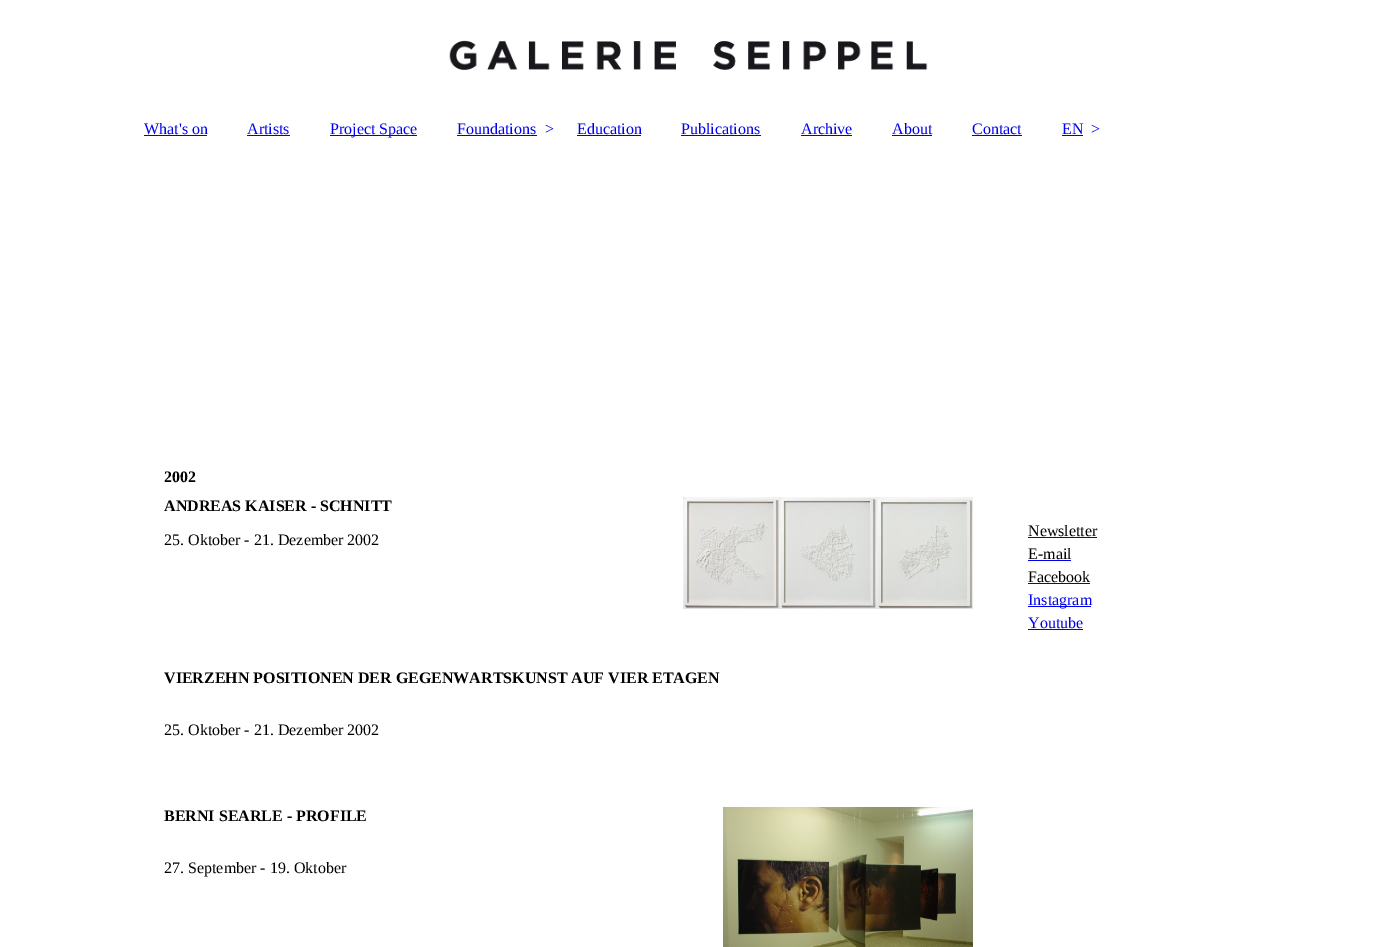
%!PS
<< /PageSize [1397 947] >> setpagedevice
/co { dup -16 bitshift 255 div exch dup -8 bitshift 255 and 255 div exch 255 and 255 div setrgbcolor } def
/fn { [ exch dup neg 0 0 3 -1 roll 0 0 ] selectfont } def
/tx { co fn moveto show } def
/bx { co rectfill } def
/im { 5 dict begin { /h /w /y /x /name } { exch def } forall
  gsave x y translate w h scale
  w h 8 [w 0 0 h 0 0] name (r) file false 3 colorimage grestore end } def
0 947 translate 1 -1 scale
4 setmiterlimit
0 0 1397 947 16#FFFFFF bx
(media/1.raw) 449 40 479 30 im
144 135 63 1 16#0000EE bx
247 135 43 1 16#0000EE bx
330 135 87 1 16#0000EE bx
457 135 80 1 16#0000EE bx
577 135 64 1 16#0000EE bx
681 135 80 1 16#0000EE bx
801 135 51 1 16#0000EE bx
892 135 40 1 16#0000EE bx
972 135 50 1 16#0000EE bx
1062 135 21 1 16#0000EE bx
(media/2.raw) 683 497 290 112 im
(media/3.raw) 723 807 250 140 im
1028 537 69 1 16#0000EE bx
1028 560 43 1 16#0000EE bx
1028 583 62 1 16#0000EE bx
1028 606 63 1 16#0000EE bx
1028 629 55 1 16#0000EE bx
(What's on) 144 134 /LiberationSerif-Regular 16 16#0000EE tx
(Artists) 247 134 /LiberationSerif-Regular 16 16#0000EE tx
(Project Space) 330 134 /LiberationSerif-Regular 16 16#0000EE tx
(Foundations) 457 134 /LiberationSerif-Regular 16 16#0000EE tx
(>) 545 134 /LiberationSerif-Regular 16 16#0000EE tx
(Education) 577 134 /LiberationSerif-Regular 16 16#0000EE tx
(Publications) 681 134 /LiberationSerif-Regular 16 16#0000EE tx
(Archive) 801 134 /LiberationSerif-Regular 16 16#0000EE tx
(About) 892 134 /LiberationSerif-Regular 16 16#0000EE tx
(Contact) 972 134 /LiberationSerif-Regular 16 16#0000EE tx
(EN) 1062 134 /LiberationSerif-Regular 16 16#0000EE tx
(>) 1091 134 /LiberationSerif-Regular 16 16#0000EE tx
(2002) 164 482 /LiberationSerif-Bold 16 16#000000 tx
(ANDREAS KAISER - SCHNITT) 164 511 /LiberationSerif-Bold 16 16#000000 tx
(25. Oktober - 21. Dezember 2002) 164 545 /LiberationSerif-Regular 16 16#000000 tx
(VIERZEHN POSITIONEN DER GEGENWARTSKUNST AUF VIER ETAGEN) 164 683 /LiberationSerif-Bold 16 16#000000 tx
(25. Oktober - 21. Dezember 2002) 164 735 /LiberationSerif-Regular 16 16#000000 tx
(BERNI SEARLE - PROFILE) 164 821 /LiberationSerif-Bold 16 16#000000 tx
(27. September - 19. Oktober) 164 873 /LiberationSerif-Regular 16 16#000000 tx
(Newsletter) 1028 536 /LiberationSerif-Regular 16 16#000000 tx
(E-mail) 1028 559 /LiberationSerif-Regular 16 16#000000 tx
(Facebook) 1028 582 /LiberationSerif-Regular 16 16#000000 tx
(Instagram) 1028 605 /LiberationSerif-Regular 16 16#0000EE tx
(Youtube) 1028 628 /LiberationSerif-Regular 16 16#0000EE tx
showpage
